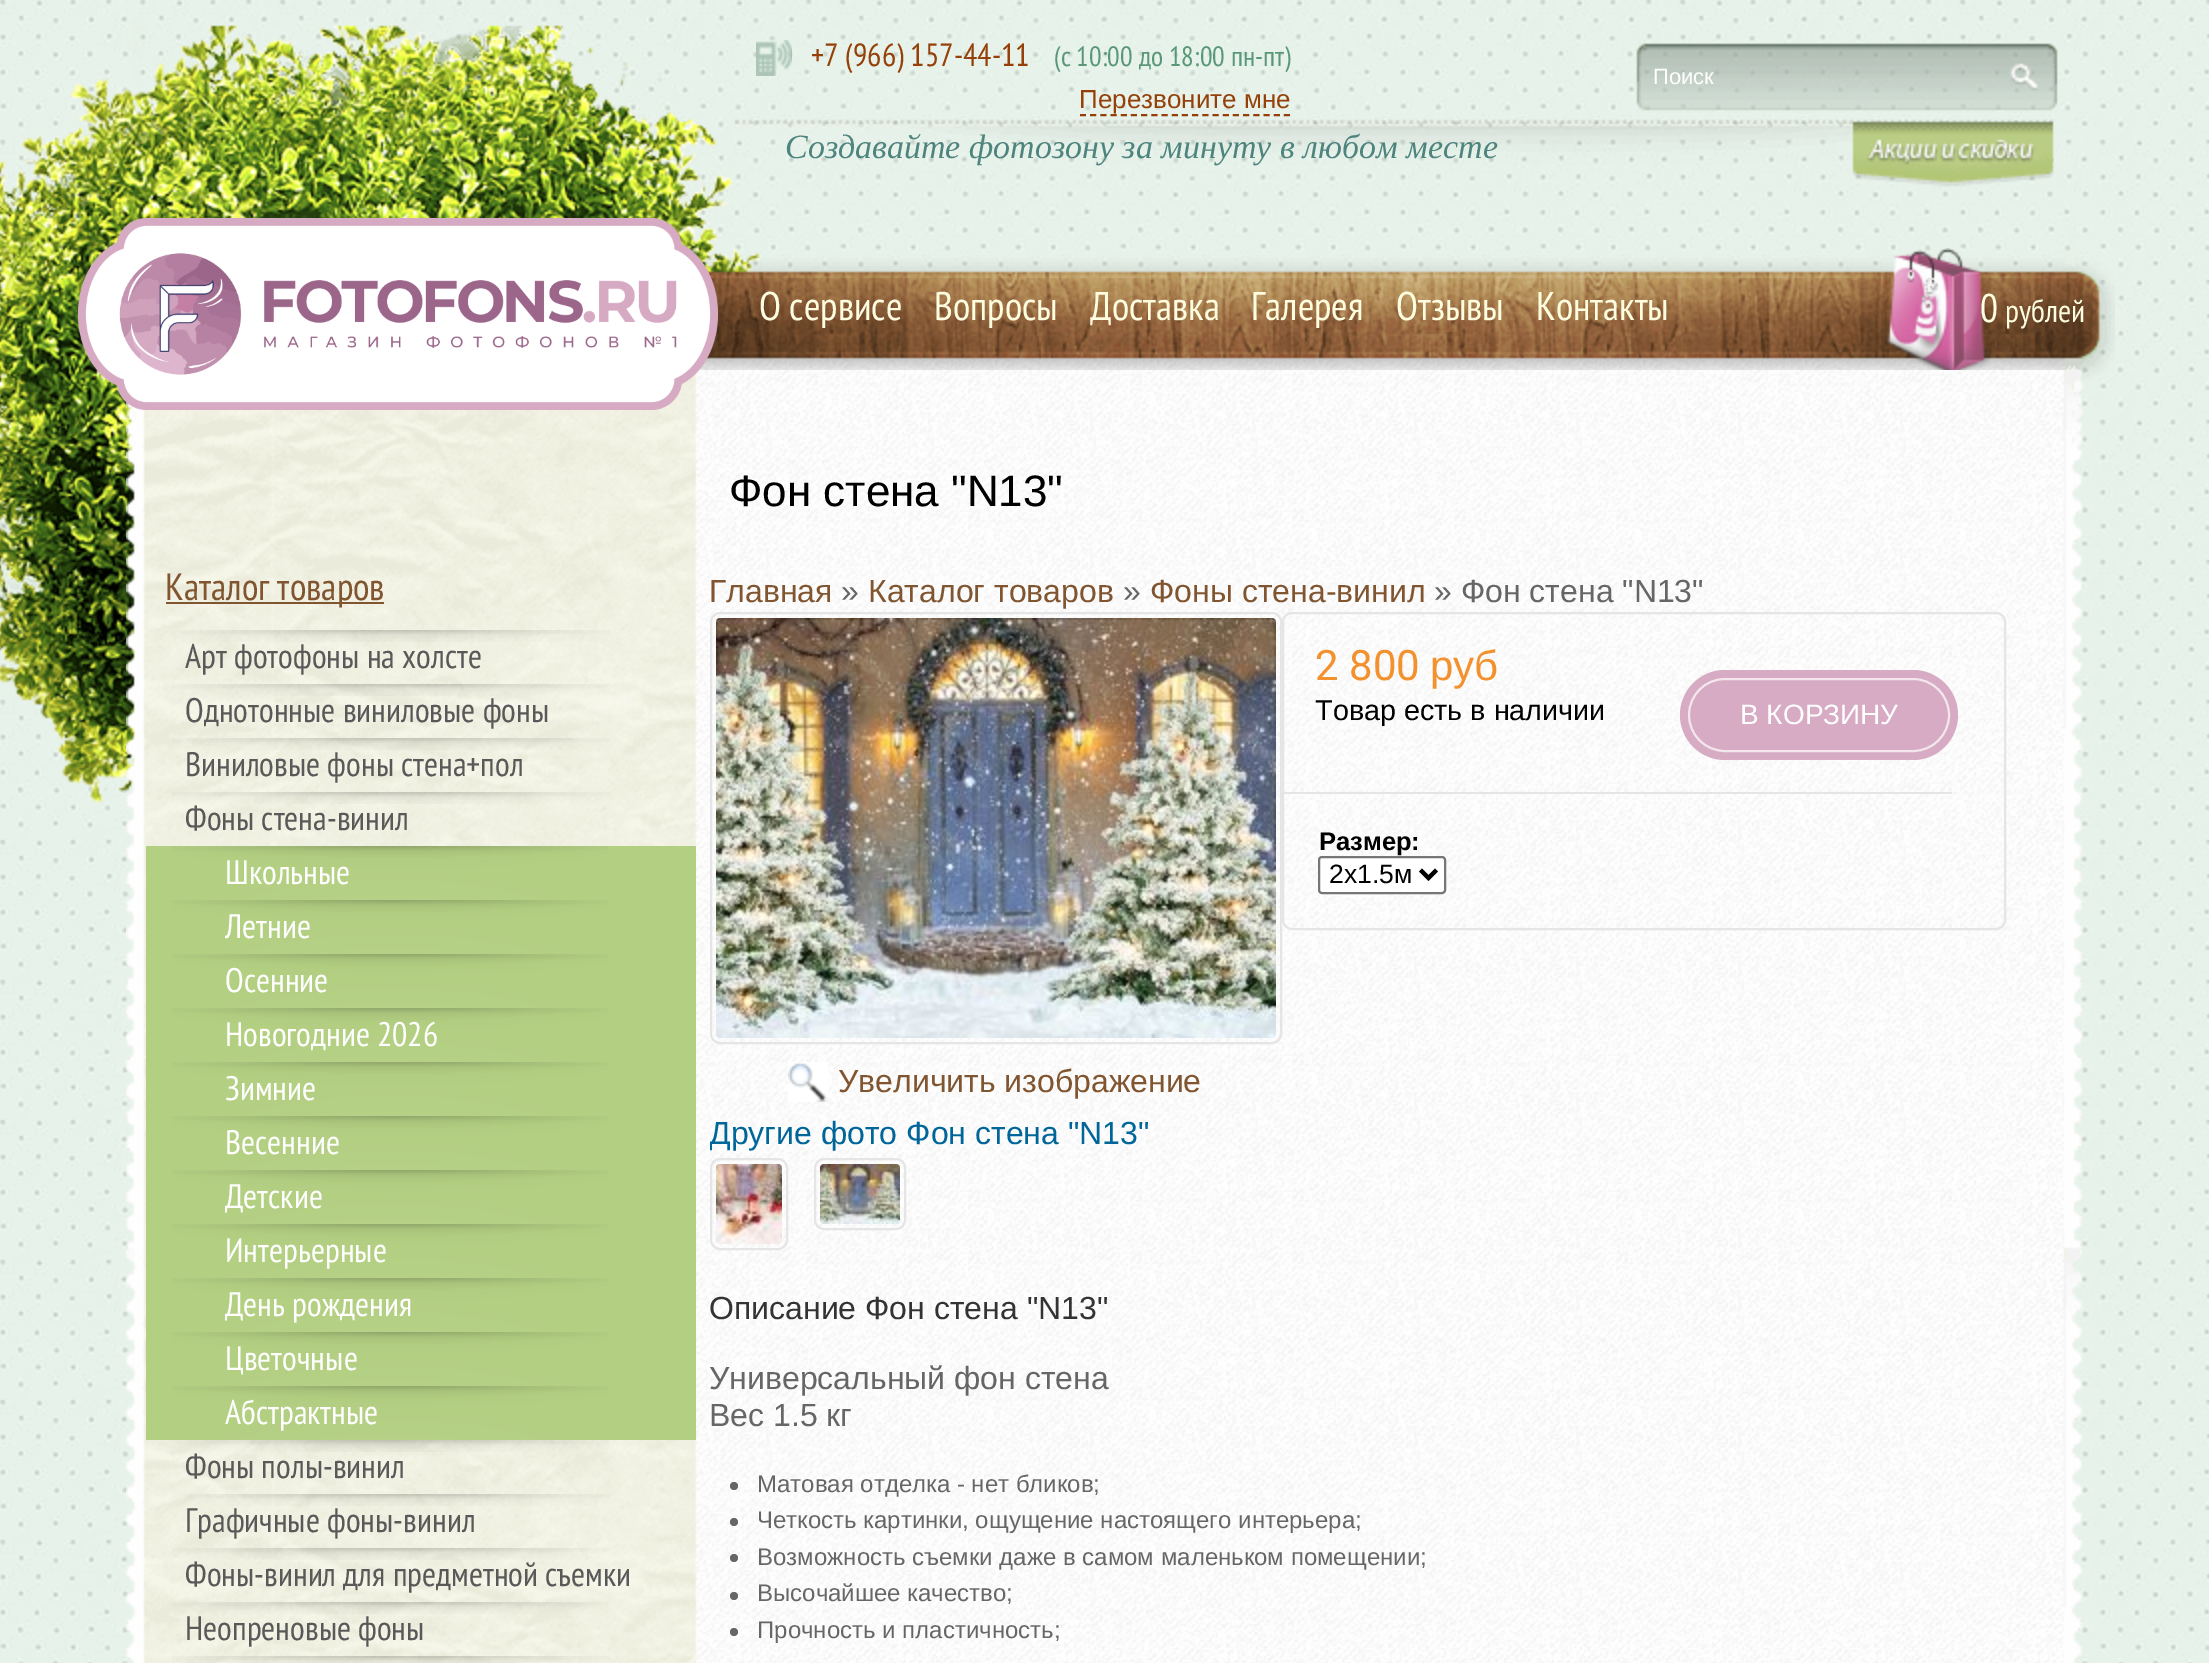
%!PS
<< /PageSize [2209 1663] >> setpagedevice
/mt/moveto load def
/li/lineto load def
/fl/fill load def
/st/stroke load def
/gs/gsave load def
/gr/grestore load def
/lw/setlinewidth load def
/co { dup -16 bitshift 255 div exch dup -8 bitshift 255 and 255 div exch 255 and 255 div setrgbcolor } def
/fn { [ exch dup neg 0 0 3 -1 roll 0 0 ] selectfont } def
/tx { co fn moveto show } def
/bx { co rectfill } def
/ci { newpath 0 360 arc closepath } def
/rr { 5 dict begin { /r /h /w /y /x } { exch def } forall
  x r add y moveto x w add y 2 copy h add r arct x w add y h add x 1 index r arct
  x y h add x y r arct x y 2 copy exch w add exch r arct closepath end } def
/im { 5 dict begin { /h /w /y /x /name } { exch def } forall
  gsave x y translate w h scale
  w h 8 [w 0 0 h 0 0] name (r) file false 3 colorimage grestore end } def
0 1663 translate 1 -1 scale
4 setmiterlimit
0 0 2209 1663 16#FFFFFF bx
(media/1.raw) 0 0 2209 1663 im
(media/2.raw) 0 25 2115 778 im
(media/3.raw) 756 40 36 36 im
16#944008 co
2 lw
[6 4.2] 0 setdash
1080 115 mt 1290 115 li st
(media/4.raw) 1882 248 108 122 im
(media/5.raw) 126 370 1956 1293 im
166 602 218 2 16#80552F bx
(media/6.raw) 172 630 438 12 im
(media/7.raw) 172 684 438 12 im
(media/8.raw) 172 738 438 12 im
(media/9.raw) 172 792 438 12 im
146 846 550 594 16#B3CF82 bx
(media/10.raw) 172 846 436 54 im
(media/10.raw) 172 900 436 54 im
(media/10.raw) 172 954 436 54 im
(media/10.raw) 172 1008 436 54 im
(media/10.raw) 172 1062 436 54 im
(media/10.raw) 172 1116 436 54 im
(media/10.raw) 172 1170 436 54 im
(media/10.raw) 172 1224 436 54 im
(media/10.raw) 172 1278 436 54 im
(media/10.raw) 172 1332 436 54 im
(media/10.raw) 172 1386 436 54 im
(media/11.raw) 172 1440 438 12 im
(media/12.raw) 172 1494 438 12 im
(media/13.raw) 172 1548 438 12 im
(media/14.raw) 172 1602 438 12 im
(media/15.raw) 172 1656 438 7 im
16#E5E5E5 co
[] 0 setdash
1283 613 722 316 9 rr st
16#D7ABC4 co
1680 670 278 90 45 rr fl
16#F3E6ED co
1689 679 260 72 36 rr st
1282 792 670 2 16#E5E5E5 bx
16#FFFFFF co
1319 857 126 36 3 rr gs fl gr
16#767676 co
st
16#000000 co
4 lw
1420.5 870 mt 1428.5 878 li 1436.5 870 li st
16#E5E5E5 co
2 lw
711 613 570 430 9 rr st
(media/16.raw) 716 618 560 420 im
(media/17.raw) 788 1062 40 40 im
711 1159 76 90 9 rr st
(media/18.raw) 716 1164 66 80 im
815 1159 90 70 9 rr st
(media/19.raw) 820 1164 80 60 im
16#666666 co
734 1486 4 ci fl
734 1522 4 ci fl
734 1558 4 ci fl
734 1596 4 ci fl
734 1632 4 ci fl
(media/20.raw) 78 218 640 192 im
(+7 \(966\) 157-44-11) 811 66 /PTSansNarrow-Regular 32 16#944008 tx
(\(с 10:00 до 18:00 пн-пт\)) 1054 66 /PTSansNarrow-Regular 28 16#599877 tx
(Перезвоните мне) 1079 108 /LiberationSans-Regular 26 16#944008 tx
(Поиск) 1653 84 /LiberationSans-Regular 22 16#FFFFFF tx
(О сервисе) 759 320 /PTSansNarrow-Regular 40 16#FEFDE0 tx
(Вопросы) 934 320 /PTSansNarrow-Regular 40 16#FEFDE0 tx
(Доставка) 1090 320 /PTSansNarrow-Regular 40 16#FEFDE0 tx
(Галерея) 1251 320 /PTSansNarrow-Regular 40 16#FEFDE0 tx
(Отзывы) 1396 320 /PTSansNarrow-Regular 40 16#FEFDE0 tx
(Контакты) 1536 320 /PTSansNarrow-Regular 40 16#FEFDE0 tx
(0) 1980 322 /PTSansNarrow-Regular 40 16#FEFDE0 tx
(рублей) 2005 322 /PTSansNarrow-Regular 32 16#FEFDE0 tx
(Каталог товаров) 165 600 /PTSansNarrow-Regular 38 16#80552F tx
(Арт фотофоны на холсте) 185 668 /PTSansNarrow-Regular 34 16#595959 tx
(Однотонные виниловые фоны) 185 722 /PTSansNarrow-Regular 34 16#595959 tx
(Виниловые фоны стена+пол) 185 776 /PTSansNarrow-Regular 34 16#595959 tx
(Фоны стена-винил) 185 830 /PTSansNarrow-Regular 34 16#595959 tx
(Школьные) 225 884 /PTSansNarrow-Regular 34 16#FFFFFF tx
(Летние) 225 938 /PTSansNarrow-Regular 34 16#FFFFFF tx
(Осенние) 225 992 /PTSansNarrow-Regular 34 16#FFFFFF tx
(Новогодние 2026) 225 1046 /PTSansNarrow-Regular 34 16#FFFFFF tx
(Зимние) 225 1100 /PTSansNarrow-Regular 34 16#FFFFFF tx
(Весенние) 225 1154 /PTSansNarrow-Regular 34 16#FFFFFF tx
(Детские) 225 1208 /PTSansNarrow-Regular 34 16#FFFFFF tx
(Интерьерные) 225 1262 /PTSansNarrow-Regular 34 16#FFFFFF tx
(День рождения) 225 1316 /PTSansNarrow-Regular 34 16#FFFFFF tx
(Цветочные) 225 1370 /PTSansNarrow-Regular 34 16#FFFFFF tx
(Абстрактные) 225 1424 /PTSansNarrow-Regular 34 16#FFFFFF tx
(Фоны полы-винил) 185 1478 /PTSansNarrow-Regular 34 16#595959 tx
(Графичные фоны-винил) 185 1532 /PTSansNarrow-Regular 34 16#595959 tx
(Фоны-винил для предметной съемки) 185 1586 /PTSansNarrow-Regular 34 16#595959 tx
(Неопреновые фоны) 185 1640 /PTSansNarrow-Regular 34 16#595959 tx
(Фон стена "N13") 729 506 /LiberationSans-Regular 44 16#000000 tx
(Главная) 709 602 /LiberationSans-Regular 32 16#80552F tx
(») 841 602 /LiberationSans-Regular 32 16#666666 tx
(Каталог товаров) 868 602 /LiberationSans-Regular 32 16#80552F tx
(») 1123 602 /LiberationSans-Regular 32 16#666666 tx
(Фоны стена-винил) 1150 602 /LiberationSans-Regular 32 16#80552F tx
(» Фон стена "N13") 1434 602 /LiberationSans-Regular 32 16#666666 tx
(2 800) 1315 680 /Roboto-Regular 42 16#F2912D tx
(руб) 1430 680 /LiberationSans-Regular 42 16#F2912D tx
(Товар есть в наличии) 1315 720 /LiberationSans-Regular 28.75 16#000000 tx
(В КОРЗИНУ) 1740 724 /LiberationSans-Regular 28 16#FFFFFF tx
(Размер:) 1319 850 /LiberationSans-Bold 25.5 16#000000 tx
(2х1.5м) 1329 883 /LiberationSans-Regular 26.5 16#000000 tx
(Увеличить изображение) 838 1092 /LiberationSans-Regular 32 16#80552F tx
gs
710 612 1400 646 rectclip
(Другие фото Фон стена "N13") 709 1144 /LiberationSans-Regular 32 16#006699 tx
gr
(Описание Фон стена "N13") 709 1319 /LiberationSans-Regular 32 16#333333 tx
(Универсальный фон стена) 709 1389 /LiberationSans-Regular 32 16#666666 tx
(Вес 1.5 кг) 709 1426 /LiberationSans-Regular 32 16#666666 tx
(Матовая отделка - нет бликов;) 757 1492 /LiberationSans-Regular 24 16#666666 tx
(Четкость картинки, ощущение настоящего интерьера;) 757 1528 /LiberationSans-Regular 24 16#666666 tx
(Возможность съемки даже в самом маленьком помещении;) 757 1565 /LiberationSans-Regular 24 16#666666 tx
(Высочайшее качество;) 757 1601 /LiberationSans-Regular 24 16#666666 tx
(Прочность и пластичность;) 757 1638 /LiberationSans-Regular 24 16#666666 tx
(Создавайте фотозону за минуту в любом месте) 785 158 /LiberationSerif-Italic 34 16#4E847E tx
showpage
